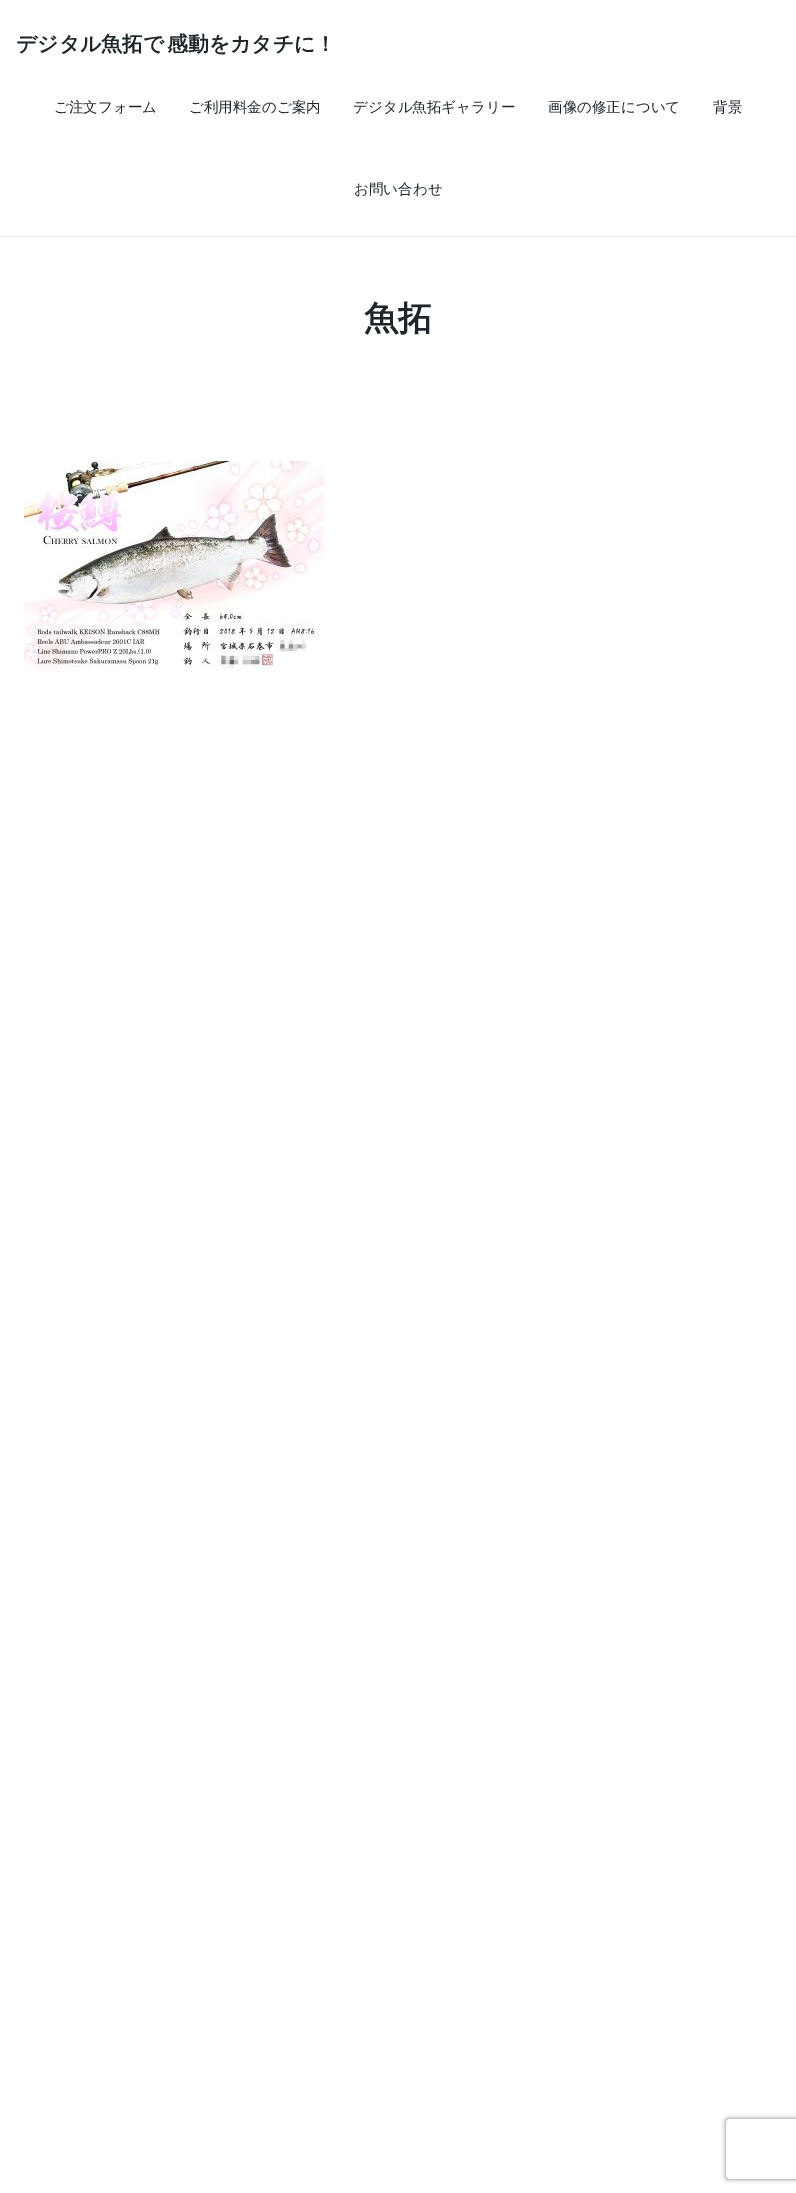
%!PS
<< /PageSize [796 2193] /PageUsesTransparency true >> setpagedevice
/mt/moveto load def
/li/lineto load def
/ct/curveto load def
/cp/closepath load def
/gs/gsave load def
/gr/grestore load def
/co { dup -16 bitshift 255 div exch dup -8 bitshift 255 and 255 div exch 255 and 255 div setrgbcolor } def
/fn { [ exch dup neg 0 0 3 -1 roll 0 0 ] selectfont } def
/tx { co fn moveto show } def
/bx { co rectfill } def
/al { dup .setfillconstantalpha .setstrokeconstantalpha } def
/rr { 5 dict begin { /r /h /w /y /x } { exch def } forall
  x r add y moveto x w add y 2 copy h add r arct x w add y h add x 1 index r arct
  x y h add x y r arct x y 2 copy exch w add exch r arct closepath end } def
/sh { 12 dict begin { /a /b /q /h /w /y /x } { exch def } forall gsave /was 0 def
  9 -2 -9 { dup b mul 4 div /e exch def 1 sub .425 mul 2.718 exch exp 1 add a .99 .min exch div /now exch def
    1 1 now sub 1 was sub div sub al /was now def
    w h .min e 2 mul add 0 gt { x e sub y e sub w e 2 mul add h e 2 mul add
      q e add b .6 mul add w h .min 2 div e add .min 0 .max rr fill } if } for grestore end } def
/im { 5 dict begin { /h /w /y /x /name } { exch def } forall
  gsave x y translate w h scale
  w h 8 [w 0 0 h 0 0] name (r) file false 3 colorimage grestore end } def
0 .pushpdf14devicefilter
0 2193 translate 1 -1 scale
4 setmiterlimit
0 0 796 2193 16#FFFFFF bx
0 236 796 1 16#E5EBFF bx
(media/1.raw) 24 461 300 212 im
gs
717 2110 mt 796 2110 li 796 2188 li 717 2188 li cp 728 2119 mt 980 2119 li 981 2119 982 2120 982 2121 ct 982 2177 li 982 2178 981 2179 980 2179 ct 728 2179 li 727 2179 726 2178 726 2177 ct 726 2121 li 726 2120 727 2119 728 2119 ct cp eoclip newpath
16#808080 co
726 2119 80 60 2 2.5 1 sh
gr
/WenQuanYiZenHei-Bold 20.8 fn
16#1E262A co
16 51 mt -3 0 32 (デジタル魚拓で 感動をカタチに！) widthshow
(ご注文フォーム) 54 112 /WenQuanYiZenHei-Medium 14.5 16#1E262A tx
(ご利用料金のご案内) 189 112 /WenQuanYiZenHei-Medium 14.5 16#1E262A tx
(デジタル魚拓ギャラリー) 353 112 /WenQuanYiZenHei-Medium 14.5 16#1E262A tx
(画像の修正について) 548 112 /WenQuanYiZenHei-Medium 14.5 16#1E262A tx
(背景) 713 112 /WenQuanYiZenHei-Medium 14.5 16#1E262A tx
(お問い合わせ) 354 194 /WenQuanYiZenHei-Medium 14.5 16#1E262A tx
(魚拓) 364 330 /WenQuanYiZenHei-Bold 34 16#1E262A tx
.poppdf14devicefilter showpage
